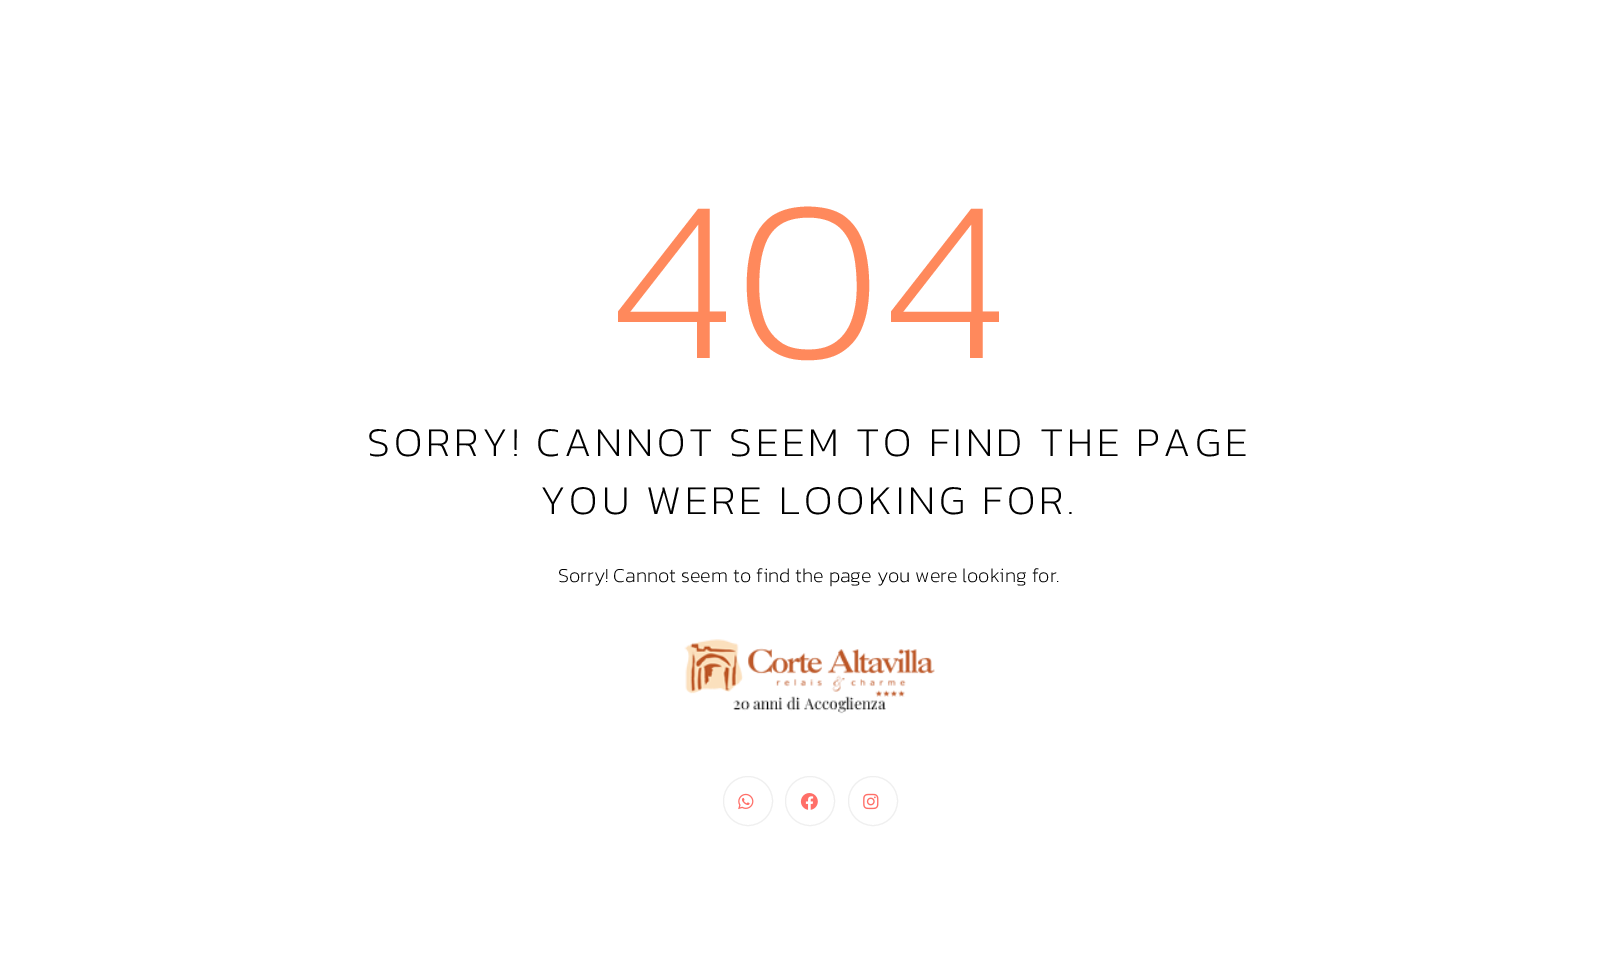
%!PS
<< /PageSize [1617 968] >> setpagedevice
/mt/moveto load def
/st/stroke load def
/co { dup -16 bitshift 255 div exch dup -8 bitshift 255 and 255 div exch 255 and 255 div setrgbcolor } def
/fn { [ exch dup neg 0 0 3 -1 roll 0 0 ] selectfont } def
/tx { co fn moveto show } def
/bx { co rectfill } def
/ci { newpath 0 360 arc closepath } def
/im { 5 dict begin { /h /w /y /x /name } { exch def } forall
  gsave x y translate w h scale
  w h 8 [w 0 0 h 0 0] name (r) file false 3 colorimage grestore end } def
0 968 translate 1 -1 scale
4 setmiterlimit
0 0 1617 968 16#FFFFFF bx
(media/1.raw) 684 639 251 75 im
16#EFEFEF co
748 801 24.5 ci st
(media/2.raw) 738 793 16 17 im
810 801 24.5 ci st
(media/3.raw) 800 793 18 17 im
873 801 24.5 ci st
(media/4.raw) 863 793 16 17 im
(404) 610 358 /Kanit-ExtraLight 232 16#FF895C tx
/Kanit-ExtraLight 41.25 fn
16#000000 co
367 456 mt 3.75 0 (SORRY! CANNOT SEEM TO FIND THE PAGE) ashow
540 514 mt 3.75 0 (YOU WERE LOOKING FOR.) ashow
(Sorry! Cannot seem to find the page you were looking for.) 558 582 /Kanit-ExtraLight 20 16#000000 tx
showpage
